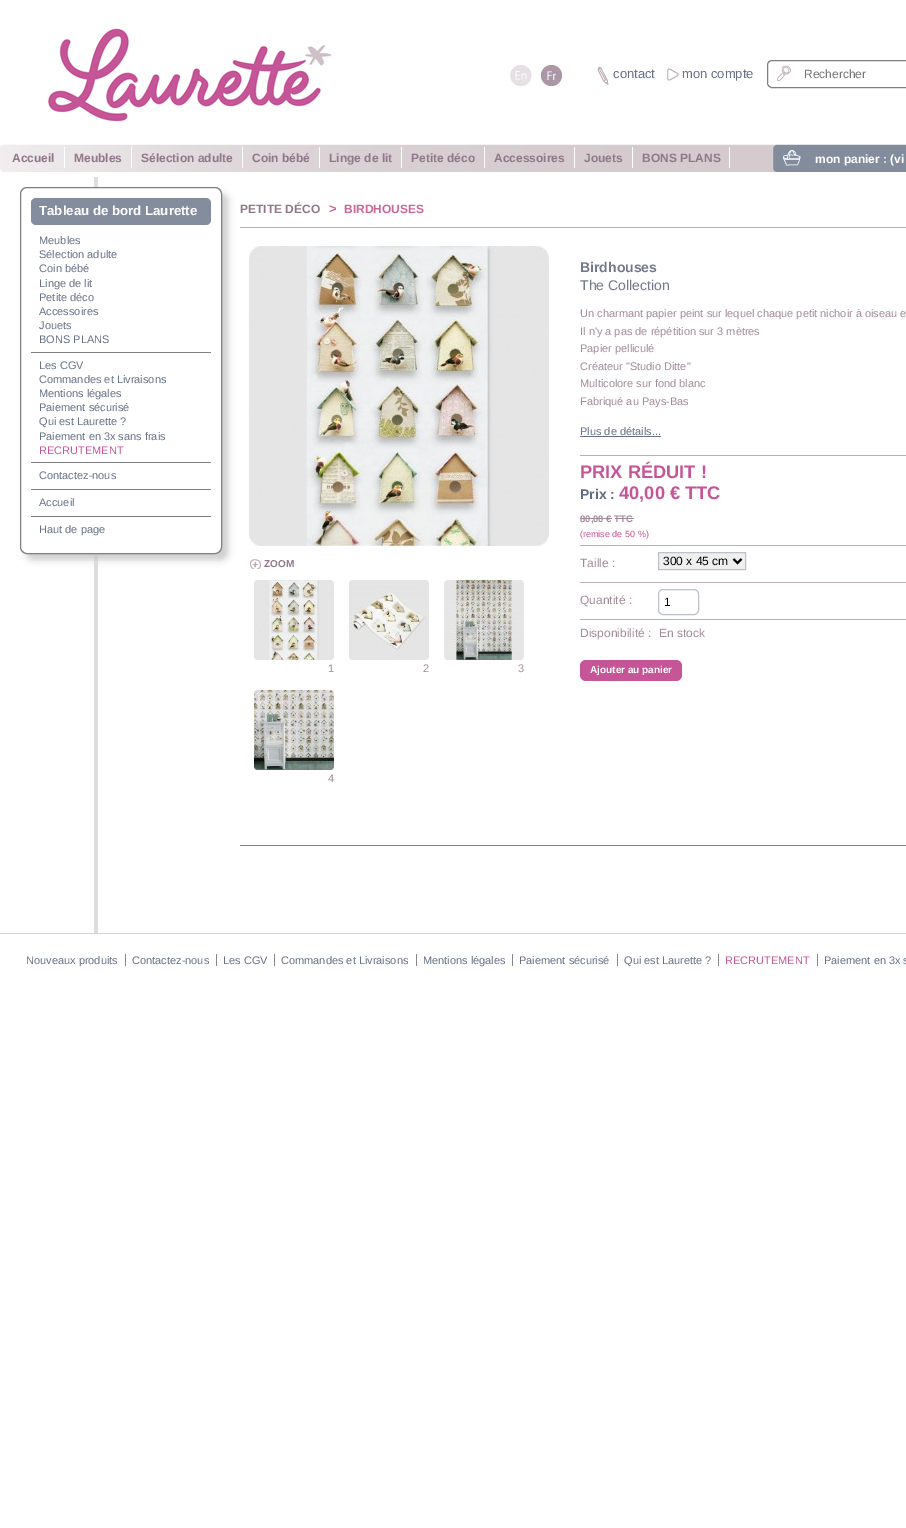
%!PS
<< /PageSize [906 1528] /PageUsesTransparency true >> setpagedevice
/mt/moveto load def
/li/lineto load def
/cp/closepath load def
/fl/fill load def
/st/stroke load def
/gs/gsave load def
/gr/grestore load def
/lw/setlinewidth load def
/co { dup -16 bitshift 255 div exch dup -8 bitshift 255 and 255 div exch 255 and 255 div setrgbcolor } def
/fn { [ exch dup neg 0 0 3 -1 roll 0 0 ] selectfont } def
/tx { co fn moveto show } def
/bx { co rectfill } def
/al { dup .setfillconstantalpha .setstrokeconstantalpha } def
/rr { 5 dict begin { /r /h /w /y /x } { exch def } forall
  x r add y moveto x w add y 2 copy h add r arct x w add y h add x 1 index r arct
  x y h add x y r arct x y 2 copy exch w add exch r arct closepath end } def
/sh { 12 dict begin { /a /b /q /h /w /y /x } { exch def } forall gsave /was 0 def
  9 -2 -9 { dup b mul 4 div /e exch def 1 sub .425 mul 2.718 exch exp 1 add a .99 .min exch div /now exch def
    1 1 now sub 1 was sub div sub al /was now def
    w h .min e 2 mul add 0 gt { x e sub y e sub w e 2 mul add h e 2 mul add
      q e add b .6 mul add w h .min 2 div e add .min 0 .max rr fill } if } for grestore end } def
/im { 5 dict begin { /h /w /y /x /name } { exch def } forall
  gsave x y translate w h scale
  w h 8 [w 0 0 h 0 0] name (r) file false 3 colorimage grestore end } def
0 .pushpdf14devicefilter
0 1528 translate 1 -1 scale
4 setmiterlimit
0 0 906 1528 16#FFFFFF bx
(media/1.raw) 48 28 284 94 im
(media/2.raw) 510 65 22 21 im
(media/3.raw) 538 62 24 24 im
(media/4.raw) 597 67 12 18 im
(media/5.raw) 667 68 12 13 im
16#808080 co
767.5 60.5 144 27 4.5 rr st
(media/6.raw) 777 65 14 16 im
(media/7.raw) 0 144 906 28 im
64 147 1 21 16#FFFFFF bx
131 147 1 21 16#FFFFFF bx
242 147 1 21 16#FFFFFF bx
319 147 1 21 16#FFFFFF bx
401 147 1 21 16#FFFFFF bx
484 147 1 21 16#FFFFFF bx
574 147 1 21 16#FFFFFF bx
632 147 1 21 16#FFFFFF bx
729 147 1 21 16#FFFFFF bx
94 177 4 756 16#DCDEE2 bx
16#CCCCCC co
26 193 202 367 7 3.5 1 sh
16#FFFFFF co
20.5 187.5 201 366 6.5 rr gs fl gr
16#808080 co
st
16#848D9E co
31 198 180 27 5 rr fl
31 352 180 1 16#808080 bx
31 462 180 1 16#808080 bx
31 489 180 1 16#808080 bx
31 516 180 1 16#808080 bx
240 227 666 1 16#BBACB5 bx
(media/8.raw) 249 246 300 300 im
(media/9.raw) 250 559 11 10 im
(media/10.raw) 254 580 80 80 im
(media/11.raw) 349 580 80 80 im
(media/12.raw) 444 580 80 80 im
(media/13.raw) 254 690 80 80 im
580 436 81 1 16#667185 bx
580 455 326 1 16#BBACB5 bx
580 518 32 1 16#A18B9A bx
615 518 19 1 16#A18B9A bx
580 545 326 1 16#BBACB5 bx
16#EFEFEF co
658.5 552.5 mt 745.5 552.5 li 745.5 569.5 li 658.5 569.5 li cp gs fl gr
16#BDC2C9 co
st
16#000000 co
2 lw
733.5 559 mt 737.5 563 li 741.5 559 li st
580 582 326 1 16#BBACB5 bx
16#BDC2C9 co
1 lw
658.5 589.5 40 25 4.5 rr st
580 619 326 1 16#BBACB5 bx
16#C65597 co
580 660 102 21 6 rr fl
240 845 666 1 16#76839B bx
0 933 906 1 16#D0D3D8 bx
125 954 1 12 16#888888 bx
216 954 1 12 16#888888 bx
274 954 1 12 16#888888 bx
416 954 1 12 16#888888 bx
512 954 1 12 16#888888 bx
617 954 1 12 16#888888 bx
718 954 1 12 16#888888 bx
817 954 1 12 16#888888 bx
(contact) 613 78 /LiberationSans-Regular 13 16#667185 tx
(mon compte) 682 78 /LiberationSans-Regular 13 16#667185 tx
(Rechercher) 804 78 /LiberationSans-Regular 12 16#757575 tx
(Accueil) 12 162 /LiberationSans-Bold 12 16#90778A tx
(Meubles) 74 162 /LiberationSans-Bold 12 16#90778A tx
(Sélection adulte) 141 162 /LiberationSans-Bold 12 16#90778A tx
(Coin bébé) 252 162 /LiberationSans-Bold 12 16#90778A tx
(Linge de lit) 329 162 /LiberationSans-Bold 12 16#90778A tx
(Petite déco) 411 162 /LiberationSans-Bold 12 16#90778A tx
(Accessoires) 494 162 /LiberationSans-Bold 12 16#90778A tx
(Jouets) 584 162 /LiberationSans-Bold 12 16#90778A tx
(BONS PLANS) 642 162 /LiberationSans-Bold 12 16#90778A tx
(mon panier : \(vi) 815 163 /LiberationSans-Bold 12 16#FFFFFF tx
(Tableau de bord Laurette) 39 215 /LiberationSans-Bold 13.25 16#FFFFFF tx
(Meubles) 39 244 /LiberationSans-Regular 11 16#667185 tx
(Sélection adulte) 39 258 /LiberationSans-Regular 11 16#667185 tx
(Coin bébé) 39 272 /LiberationSans-Regular 11 16#667185 tx
(Linge de lit) 39 287 /LiberationSans-Regular 11 16#667185 tx
(Petite déco) 39 301 /LiberationSans-Regular 11 16#667185 tx
(Accessoires) 39 315 /LiberationSans-Regular 11 16#667185 tx
(Jouets) 39 329 /LiberationSans-Regular 11 16#667185 tx
(BONS PLANS) 39 343 /LiberationSans-Regular 11 16#667185 tx
(Les CGV) 39 369 /LiberationSans-Regular 11 16#667185 tx
(Commandes et Livraisons) 39 383 /LiberationSans-Regular 11 16#667185 tx
(Mentions légales) 39 397 /LiberationSans-Regular 11 16#667185 tx
(Paiement sécurisé) 39 411 /LiberationSans-Regular 11 16#667185 tx
(Qui est Laurette ?) 39 425 /LiberationSans-Regular 11 16#667185 tx
(Paiement en 3x sans frais) 39 440 /LiberationSans-Regular 11 16#667185 tx
(RECRUTEMENT) 39 454 /LiberationSans-Regular 11 16#C65597 tx
(Contactez-nous) 39 479 /LiberationSans-Regular 11 16#667185 tx
(Accueil) 39 506 /LiberationSans-Regular 11 16#667185 tx
(Haut de page) 39 533 /LiberationSans-Regular 11 16#667185 tx
(PETITE DÉCO) 240 213 /LiberationSans-Bold 12 16#90778A tx
(>) 329 213 /LiberationSans-Bold 13 16#CC6699 tx
(BIRDHOUSES) 344 213 /LiberationSans-Bold 12 16#CC6699 tx
(ZOOM) 264 567 /LiberationSans-Bold 10 16#90778A tx
(1) 328 672 /LiberationSans-Regular 11 16#A18B9A tx
(2) 423 672 /LiberationSans-Regular 11 16#A18B9A tx
(3) 518 672 /LiberationSans-Regular 11 16#A18B9A tx
(4) 328 782 /LiberationSans-Regular 11 16#A18B9A tx
(Birdhouses) 580 272 /LiberationSans-Bold 14 16#73798B tx
(The Collection) 580 290 /LiberationSans-Regular 14 16#73798B tx
(Un charmant papier peint sur lequel chaque petit nichoir à oiseau e) 580 317 /LiberationSans-Regular 11 16#A18B9A tx
(Il n'y a pas de répétition sur 3 mètres) 580 335 /LiberationSans-Regular 11 16#A18B9A tx
(Papier pelliculé) 580 352 /LiberationSans-Regular 11 16#A18B9A tx
(Créateur "Studio Ditte") 580 370 /LiberationSans-Regular 11 16#A18B9A tx
(Multicolore sur fond blanc) 580 387 /LiberationSans-Regular 11 16#A18B9A tx
(Fabriqué au Pays-Bas) 580 405 /LiberationSans-Regular 11 16#A18B9A tx
(Plus de détails...) 580 435 /LiberationSans-Regular 11 16#667185 tx
(PRIX RÉDUIT !) 580 478 /LiberationSans-Bold 18.25 16#C65597 tx
(Prix :) 580 499 /LiberationSans-Bold 14 16#606B81 tx
(40,00 € TTC) 619 499 /LiberationSans-Bold 18.25 16#C65597 tx
(80,00 € TTC) 580 522 /LiberationSans-Bold 9.5 16#A18B9A tx
(\(remise de 50 %\)) 580 537 /LiberationSans-Regular 9 16#C65597 tx
(Taille :) 580 567 /LiberationSans-Regular 12 16#A18B9A tx
(300 x 45 cm) 663 565 /LiberationSans-Regular 12 16#000000 tx
(Quantité :) 580 604 /LiberationSans-Regular 12 16#A18B9A tx
(1) 664 606 /LiberationSans-Regular 12 16#000000 tx
(Disponibilité :) 580 637 /LiberationSans-Regular 12 16#A18B9A tx
(En stock) 659 637 /LiberationSans-Regular 12 16#A18B9A tx
(Ajouter au panier) 590 673 /LiberationSans-Bold 10 16#FFFFFF tx
(Nouveaux produits) 26 964 /LiberationSans-Regular 11 16#667185 tx
(Contactez-nous) 132 964 /LiberationSans-Regular 11 16#667185 tx
(Les CGV) 223 964 /LiberationSans-Regular 11 16#667185 tx
(Commandes et Livraisons) 281 964 /LiberationSans-Regular 11 16#667185 tx
(Mentions légales) 423 964 /LiberationSans-Regular 11 16#667185 tx
(Paiement sécurisé) 519 964 /LiberationSans-Regular 11 16#667185 tx
(Qui est Laurette ?) 624 964 /LiberationSans-Regular 11 16#667185 tx
(RECRUTEMENT) 725 964 /LiberationSans-Regular 11 16#C65597 tx
(Paiement en 3x s) 824 964 /LiberationSans-Regular 11 16#667185 tx
.poppdf14devicefilter showpage
